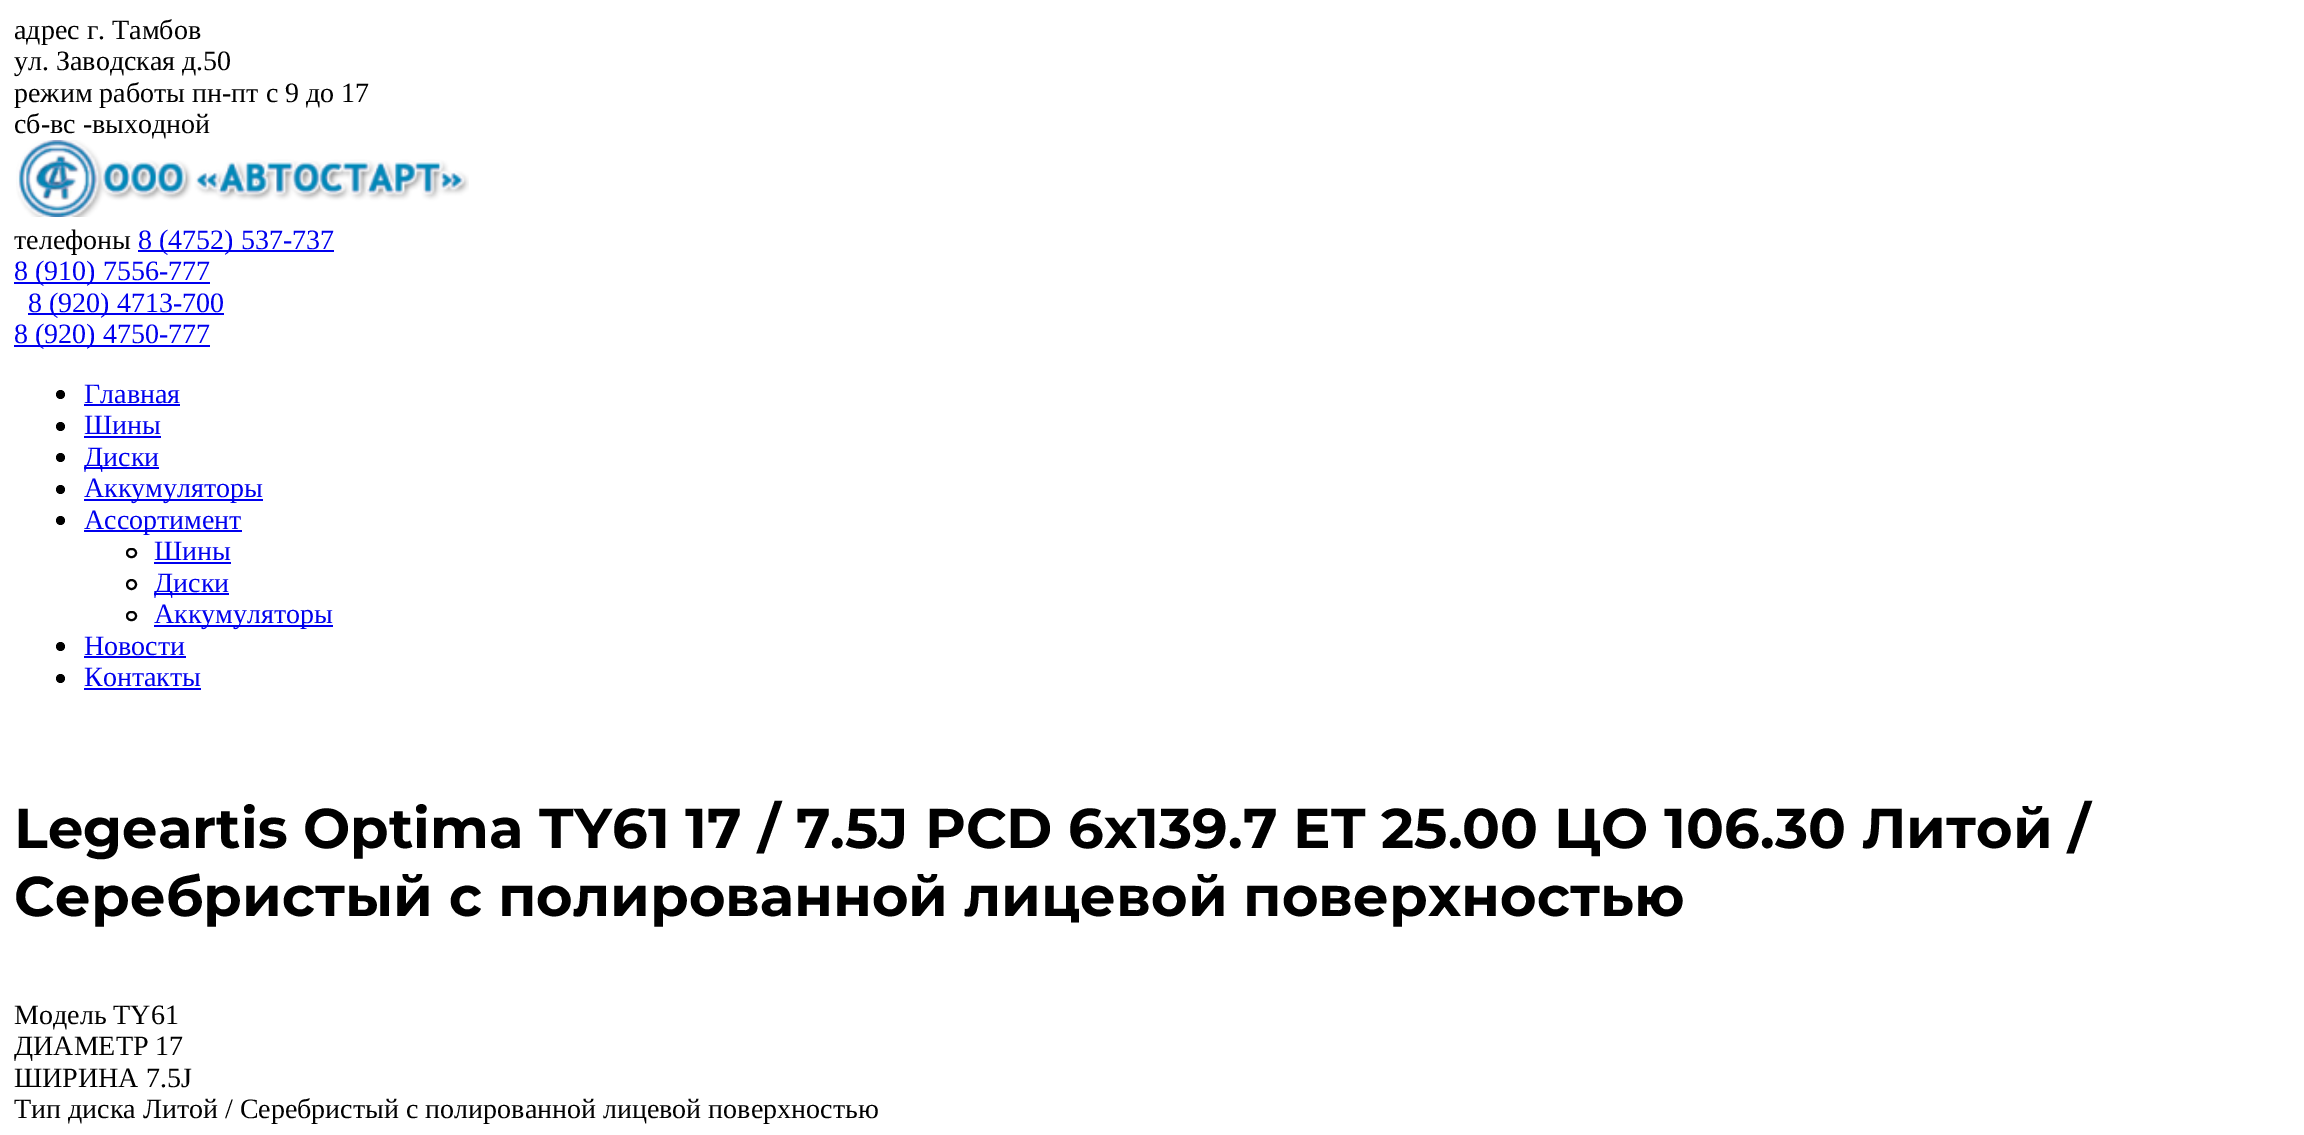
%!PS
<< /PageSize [2304 1135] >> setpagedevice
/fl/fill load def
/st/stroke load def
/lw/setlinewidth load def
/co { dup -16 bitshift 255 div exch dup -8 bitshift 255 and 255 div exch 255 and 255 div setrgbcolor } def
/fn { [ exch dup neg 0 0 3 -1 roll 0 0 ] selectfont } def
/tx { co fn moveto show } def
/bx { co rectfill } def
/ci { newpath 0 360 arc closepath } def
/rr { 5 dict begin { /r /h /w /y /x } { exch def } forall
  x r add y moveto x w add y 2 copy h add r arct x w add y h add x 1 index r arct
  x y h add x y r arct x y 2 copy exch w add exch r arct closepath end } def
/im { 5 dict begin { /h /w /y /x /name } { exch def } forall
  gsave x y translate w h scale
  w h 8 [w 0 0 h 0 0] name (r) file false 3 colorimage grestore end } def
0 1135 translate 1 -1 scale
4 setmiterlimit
0 0 2304 1135 16#FFFFFF bx
(media/1.raw) 16 140 453 77 im
138 250 196 2 16#0000EE bx
14 282 196 2 16#0000EE bx
28 313 196 2 16#0000EE bx
14 345 196 2 16#0000EE bx
16#000000 co
60.5 394.5 4.5 ci fl
84 404 96 2 16#0000EE bx
16#000000 co
60.5 426.5 4.5 ci fl
84 436 77 2 16#0000EE bx
16#000000 co
60.5 457.5 4.5 ci fl
84 467 75 2 16#0000EE bx
16#000000 co
60.5 489.5 4.5 ci fl
84 499 179 2 16#0000EE bx
16#000000 co
60.5 520.5 4.5 ci fl
84 530 158 2 16#0000EE bx
16#000000 co
2 lw
127 549 9 8 4 rr st
154 562 77 2 16#0000EE bx
16#000000 co
131.5 584.5 4.5 ci st
154 593 75 2 16#0000EE bx
16#000000 co
127 612 9 8 4 rr st
154 625 179 2 16#0000EE bx
16#000000 co
60.5 646.5 4.5 ci fl
84 656 102 2 16#0000EE bx
16#000000 co
60.5 678.5 4.5 ci fl
84 688 117 2 16#0000EE bx
(адрес г. Тамбов) 14 39 /LiberationSerif-Regular 28 16#000000 tx
(ул. Заводская д.50) 14 70 /LiberationSerif-Regular 28 16#000000 tx
(режим работы пн-пт с 9 до 17) 14 102 /LiberationSerif-Regular 28 16#000000 tx
(сб-вс -выходной) 14 133 /LiberationSerif-Regular 28 16#000000 tx
(телефоны) 14 249 /LiberationSerif-Regular 28 16#000000 tx
(8 \(4752\) 537-737) 138 249 /LiberationSerif-Regular 28 16#0000EE tx
(8 \(910\) 7556-777) 14 280 /LiberationSerif-Regular 28 16#0000EE tx
(8 \(920\) 4713-700) 28 312 /LiberationSerif-Regular 28 16#0000EE tx
(8 \(920\) 4750-777) 14 343 /LiberationSerif-Regular 28 16#0000EE tx
(Главная) 84 403 /LiberationSerif-Regular 28 16#0000EE tx
(Шины) 84 434 /LiberationSerif-Regular 28 16#0000EE tx
(Диски) 84 466 /LiberationSerif-Regular 28 16#0000EE tx
(Аккумуляторы) 84 497 /LiberationSerif-Regular 28 16#0000EE tx
(Ассортимент) 84 529 /LiberationSerif-Regular 28 16#0000EE tx
(Шины) 154 560 /LiberationSerif-Regular 28 16#0000EE tx
(Диски) 154 592 /LiberationSerif-Regular 28 16#0000EE tx
(Аккумуляторы) 154 623 /LiberationSerif-Regular 28 16#0000EE tx
(Новости) 84 655 /LiberationSerif-Regular 28 16#0000EE tx
(Контакты) 84 686 /LiberationSerif-Regular 28 16#0000EE tx
(Legeartis Optima TY61 17 / 7.5J PCD 6x139.7 ET 25.00 ЦО 106.30 Литой /) 14 848 /Montserrat-Bold 56 16#000000 tx
(Серебристый с полированной лицевой поверхностью) 14 916 /Montserrat-Bold 56 16#000000 tx
(Модель TY61) 14 1024 /LiberationSerif-Regular 28 16#000000 tx
(ДИАМЕТР 17) 14 1055 /LiberationSerif-Regular 28 16#000000 tx
(ШИРИНА 7.5J) 14 1087 /LiberationSerif-Regular 28 16#000000 tx
(Тип диска Литой / Серебристый с полированной лицевой поверхностью) 14 1118 /LiberationSerif-Regular 28 16#000000 tx
showpage
